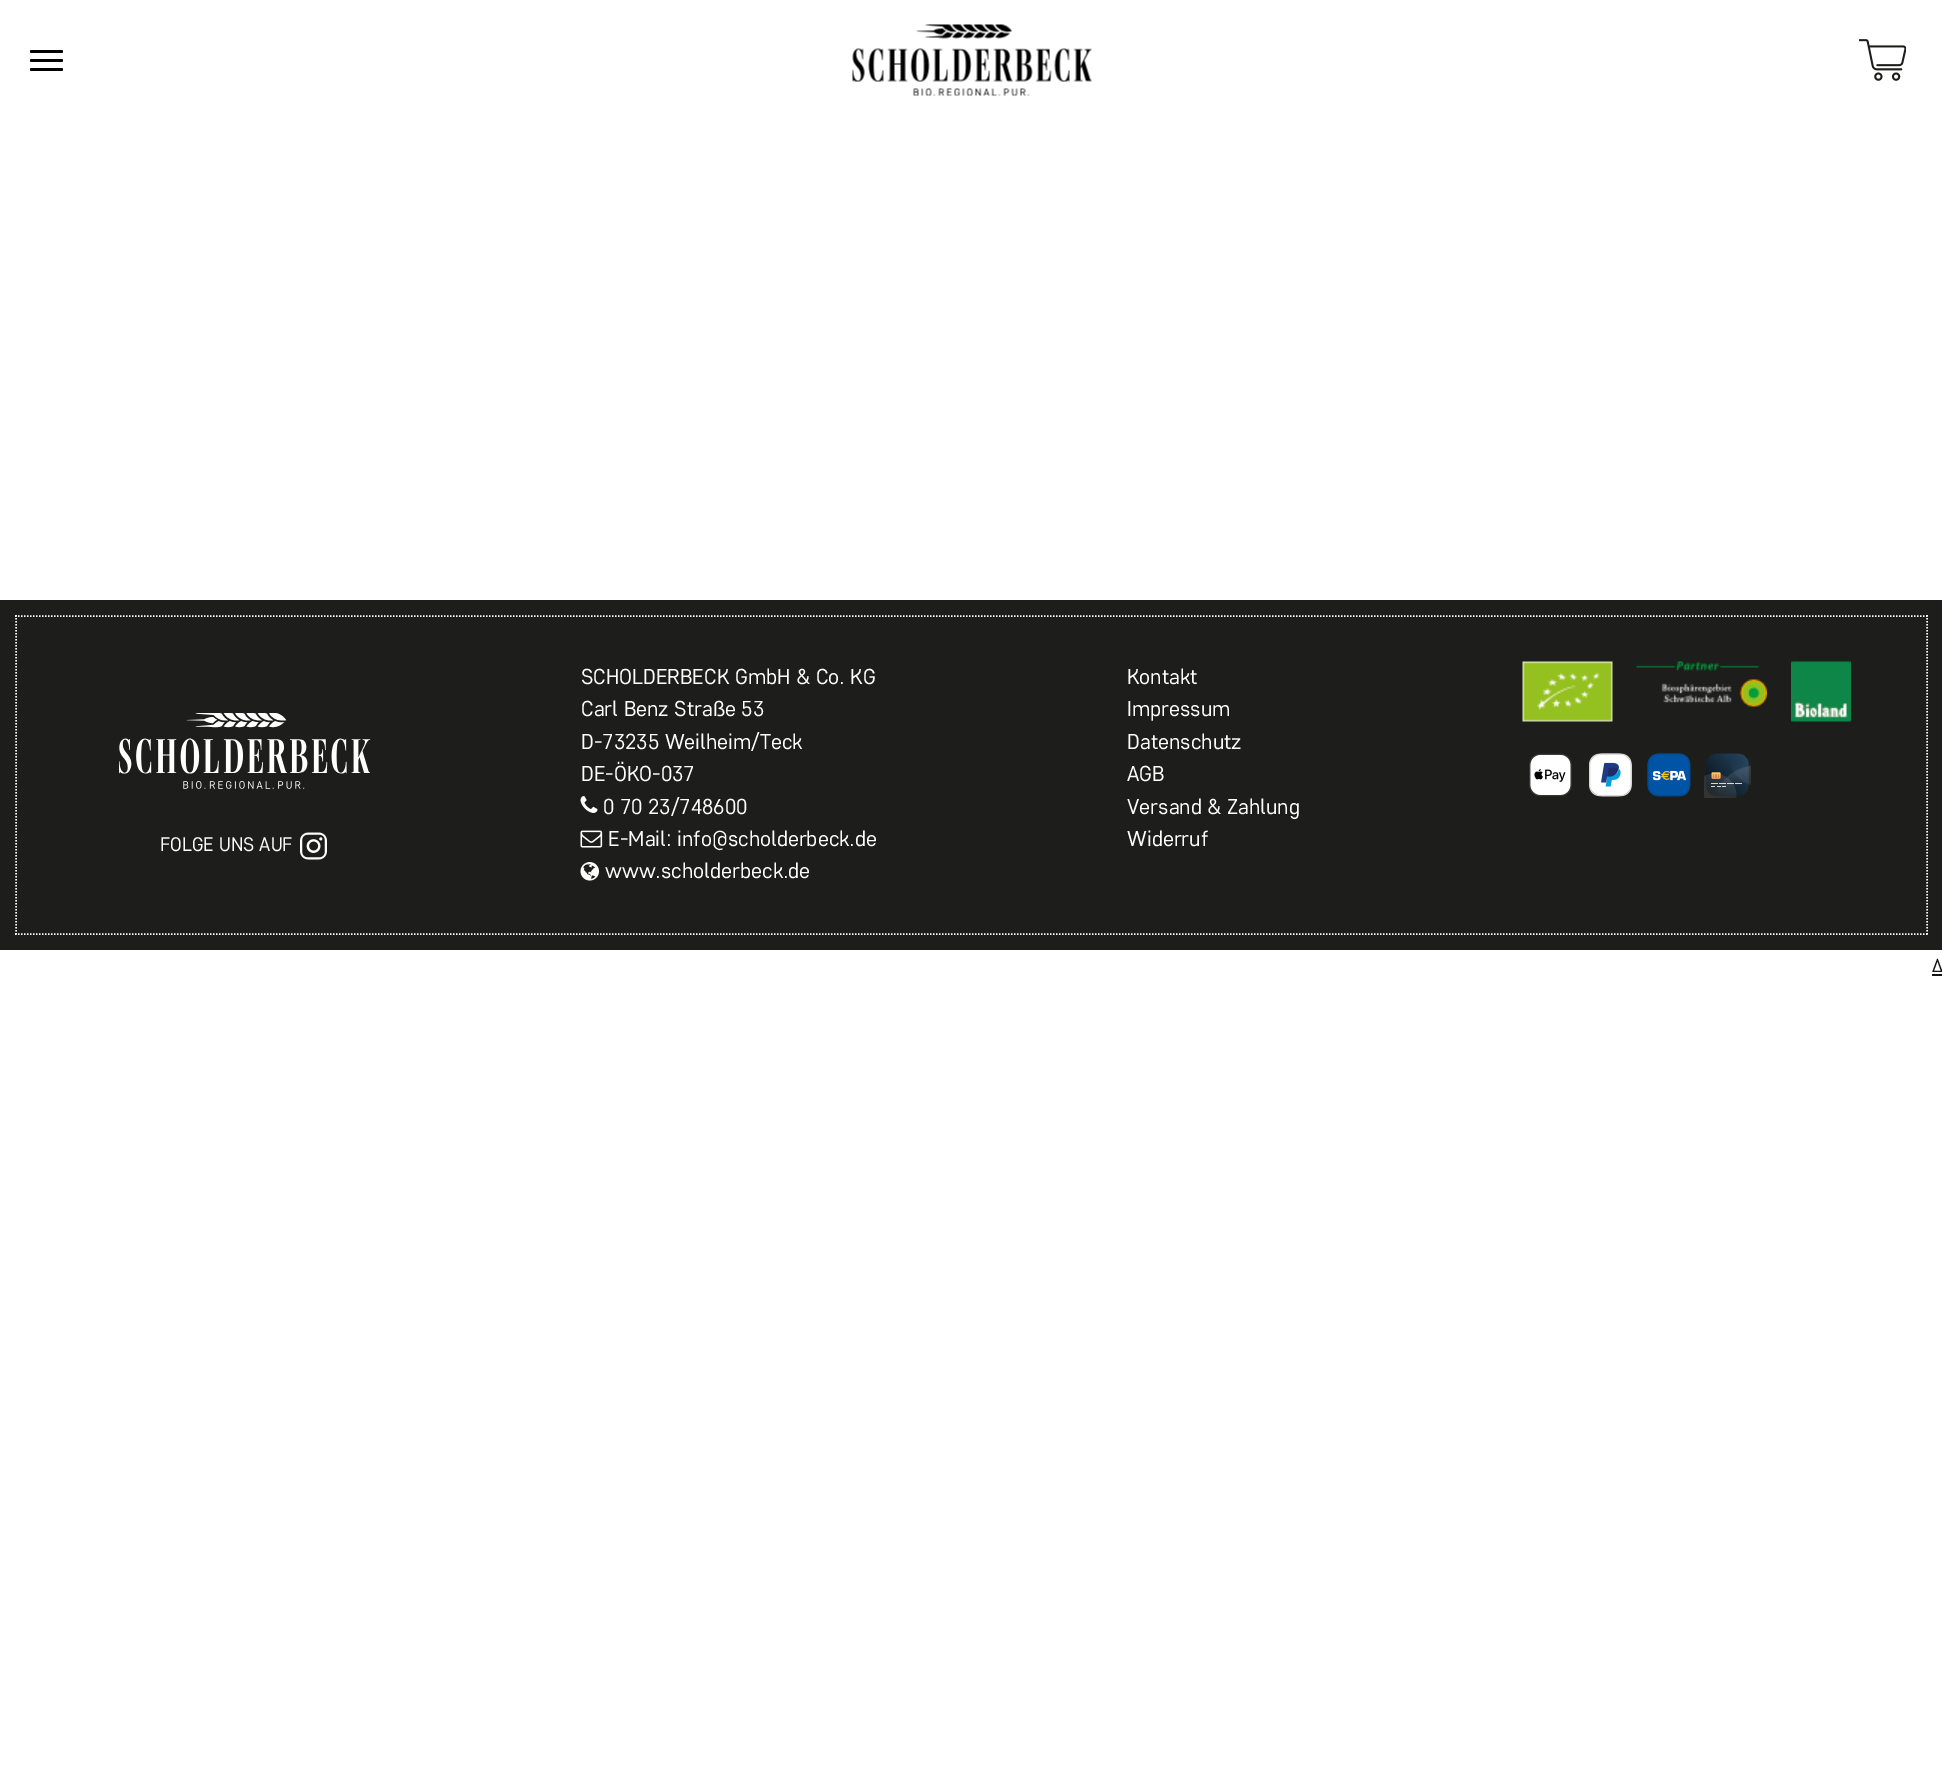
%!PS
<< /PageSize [1942 1776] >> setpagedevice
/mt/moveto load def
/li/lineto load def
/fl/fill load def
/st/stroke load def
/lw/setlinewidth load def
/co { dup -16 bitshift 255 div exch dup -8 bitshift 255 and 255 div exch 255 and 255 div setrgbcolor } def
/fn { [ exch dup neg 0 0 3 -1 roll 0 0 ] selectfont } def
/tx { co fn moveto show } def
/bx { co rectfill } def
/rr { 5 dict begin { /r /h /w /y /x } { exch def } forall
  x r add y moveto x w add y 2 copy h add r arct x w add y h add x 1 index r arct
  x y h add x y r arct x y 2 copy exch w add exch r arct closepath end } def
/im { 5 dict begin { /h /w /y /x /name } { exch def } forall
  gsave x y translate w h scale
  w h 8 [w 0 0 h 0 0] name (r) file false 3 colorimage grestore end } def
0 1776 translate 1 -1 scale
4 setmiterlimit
0 0 1942 1776 16#FFFFFF bx
16#000000 co
30 50 33 3 1.5 rr fl
30 59 33 3 1.5 rr fl
30 68 33 3 1.5 rr fl
(media/1.raw) 852 24 240 73 im
(media/2.raw) 1859 39 47 42 im
0 600 1942 350 16#1D1D1B bx
16#FFFFFF co
1.5 lw
[1.5 1.5] 0 setdash
15 616 mt 1927.5 616 li st
1927 615 mt 1927 934.5 li st
15 934 mt 1927.5 934 li st
16 615 mt 16 934.5 li st
(media/3.raw) 119 713 252 76 im
(media/4.raw) 300 832 27 28 im
(media/5.raw) 580 796 18 17 im
(media/6.raw) 580 830 23 18 im
(media/7.raw) 580 862 19 19 im
(media/8.raw) 1522 661 91 61 im
(media/9.raw) 1636 661 131 46 im
(media/10.raw) 1791 661 60 61 im
(media/11.raw) 1529 753 43 44 im
(media/12.raw) 1589 753 43 44 im
(media/13.raw) 1647 753 44 44 im
(media/14.raw) 1704 753 47 45 im
1932 974 10 2 16#141414 bx
(FOLGE UNS AUF) 160 851 /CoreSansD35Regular-Regular 19.5 16#FFFFFF tx
(SCHOLDERBECK GmbH & Co. KG) 581 684 /CoreSansD35Regular-Regular 21.6 16#FFFFFF tx
(Carl Benz Straße 53) 581 716 /CoreSansD35Regular-Regular 21.6 16#FFFFFF tx
(D-73235 Weilheim/Teck) 581 749 /CoreSansD35Regular-Regular 21.6 16#FFFFFF tx
(DE-ÖKO-037) 581 781 /CoreSansD35Regular-Regular 21.6 16#FFFFFF tx
(0 70 23/748600) 603 814 /CoreSansD35Regular-Regular 21.6 16#FFFFFF tx
(E-Mail: info@scholderbeck.de) 608 846 /CoreSansD35Regular-Regular 21.6 16#FFFFFF tx
(www.scholderbeck.de) 605 878 /CoreSansD35Regular-Regular 21.6 16#FFFFFF tx
(Kontakt) 1127 684 /CoreSansD35Regular-Regular 21.6 16#FFFFFF tx
(Impressum) 1127 716 /CoreSansD35Regular-Regular 21.6 16#FFFFFF tx
(Datenschutz) 1127 749 /CoreSansD35Regular-Regular 21.6 16#FFFFFF tx
(AGB) 1127 781 /CoreSansD35Regular-Regular 21.6 16#FFFFFF tx
(Versand & Zahlung) 1127 814 /CoreSansD35Regular-Regular 21.6 16#FFFFFF tx
(Widerruf) 1127 846 /CoreSansD35Regular-Regular 21.6 16#FFFFFF tx
(∆) 1932 972 /CoreSansD35Regular-Regular 19 16#141414 tx
showpage
